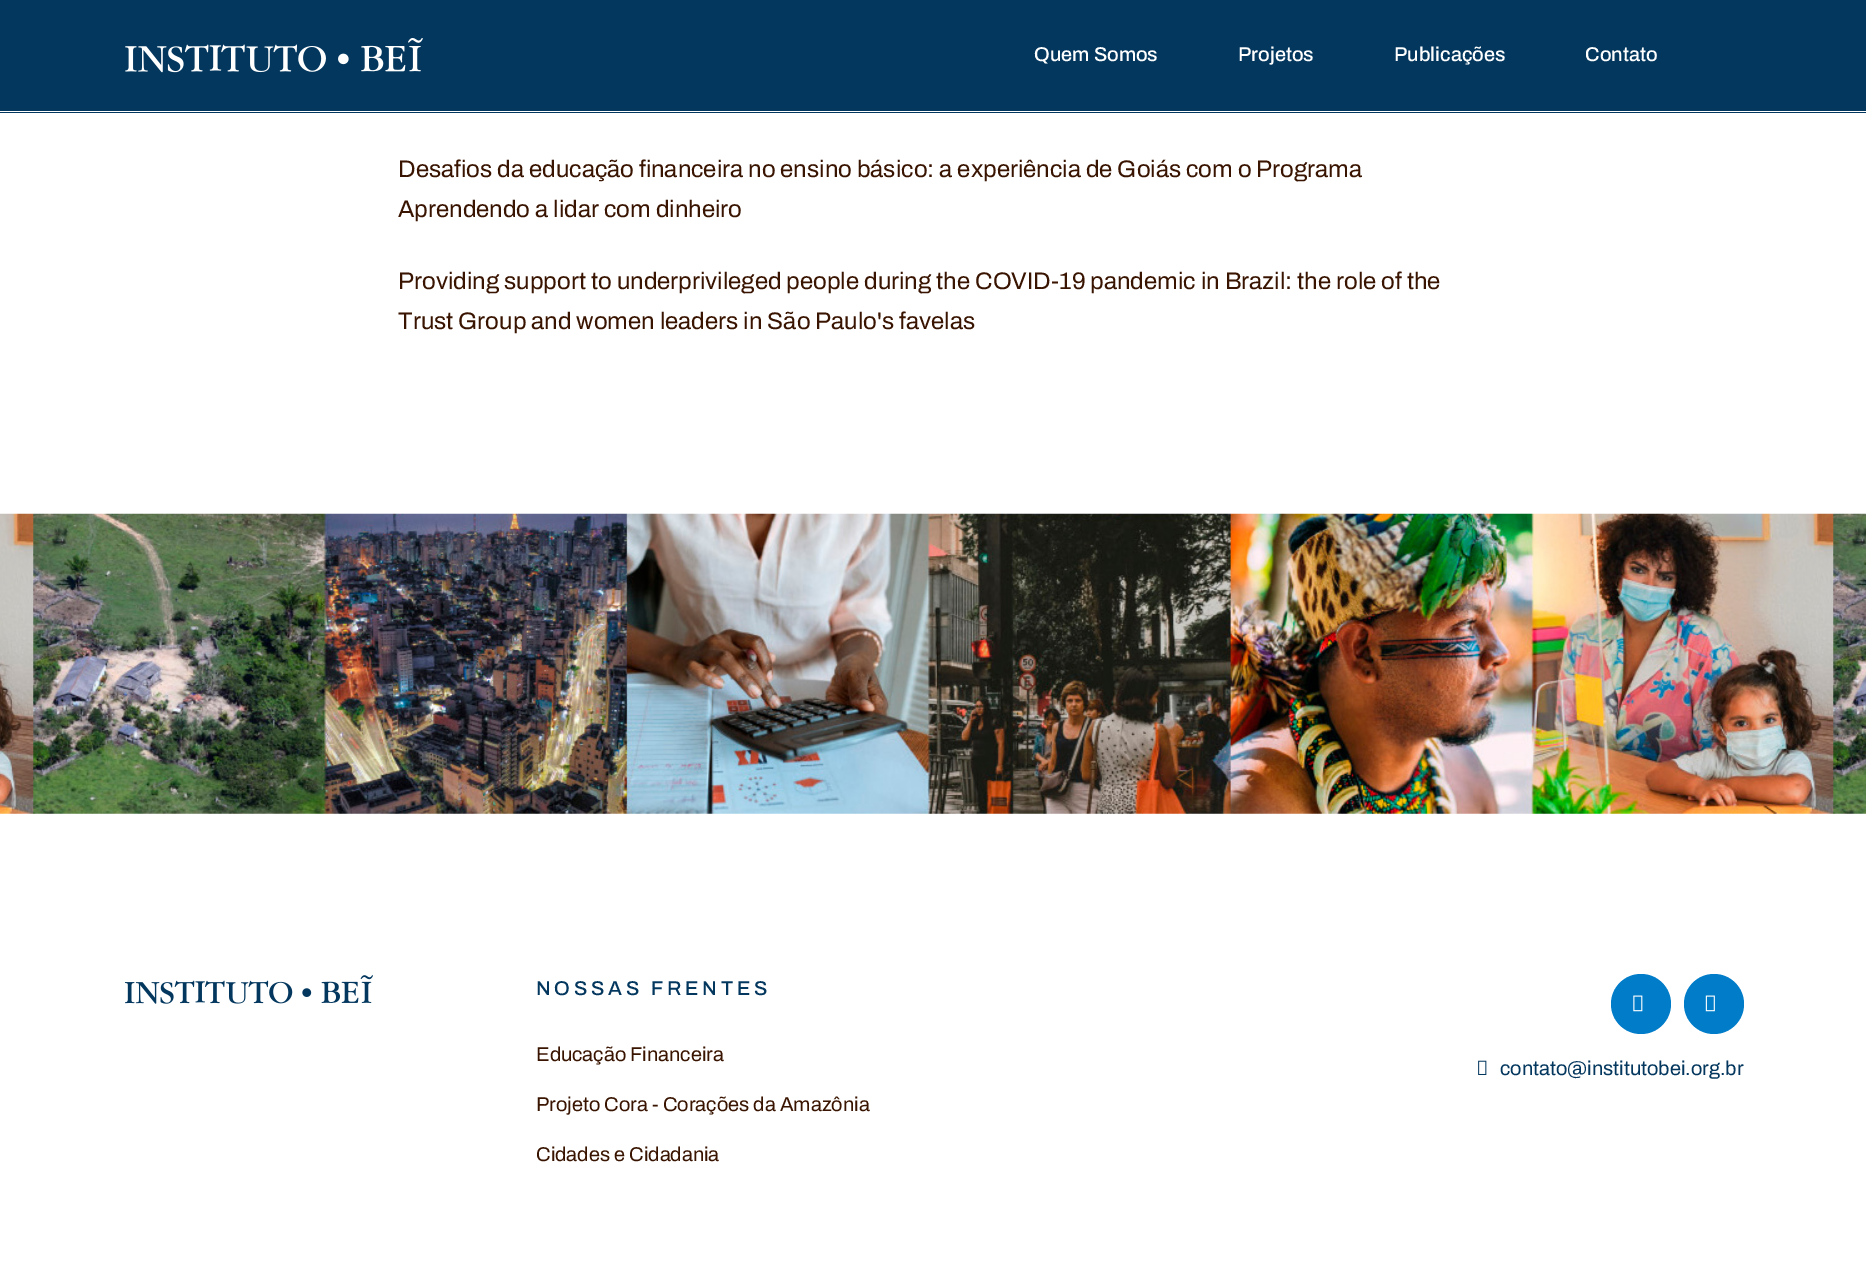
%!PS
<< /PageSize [1866 1261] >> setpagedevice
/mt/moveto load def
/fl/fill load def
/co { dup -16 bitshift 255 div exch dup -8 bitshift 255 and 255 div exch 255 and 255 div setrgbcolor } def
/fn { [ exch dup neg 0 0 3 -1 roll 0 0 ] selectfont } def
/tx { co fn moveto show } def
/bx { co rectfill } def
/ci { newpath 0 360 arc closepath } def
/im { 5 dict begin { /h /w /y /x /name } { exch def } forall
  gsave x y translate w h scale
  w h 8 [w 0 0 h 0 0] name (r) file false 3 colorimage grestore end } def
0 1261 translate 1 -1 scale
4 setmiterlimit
0 0 1866 1261 16#FFFFFF bx
0 0 1866 113 16#03375E bx
0 111 1866 1 16#FFFFFF bx
(media/1.raw) 125 38 298 35 im
(media/2.raw) 0 513 1866 301 im
(media/3.raw) 124 975 249 29 im
16#007CC9 co
1641 1004 30 ci fl
(media/4.raw) 1633 995 10 17 im
1714 1004 30 ci fl
(media/5.raw) 1705 995 10 17 im
(media/6.raw) 1478 1060 9 15 im
(Quem Somos) 1034 61 /Archivo-Medium 20 16#FFFFFF tx
(Projetos) 1238 61 /Archivo-Medium 20 16#FFFFFF tx
(Publicações) 1394 61 /Archivo-Medium 20 16#FFFFFF tx
(Contato) 1585 61 /Archivo-Medium 20 16#FFFFFF tx
(Desafios da educação financeira no ensino básico: a experiência de Goiás com o Programa) 398 177 /Archivo-Regular 24 16#391400 tx
(Aprendendo a lidar com dinheiro) 398 217 /Archivo-Regular 24 16#391400 tx
(Providing support to underprivileged people during the COVID-19 pandemic in Brazil: the role of the) 398 289 /Archivo-Regular 24 16#391400 tx
(Trust Group and women leaders in São Paulo's favelas) 398 329 /Archivo-Regular 24 16#391400 tx
/Archivo-Medium 20 fn
16#03375E co
536 995 mt 3.75 0 (NOSSAS FRENTES) ashow
(Educação Financeira) 536 1061 /Archivo-Regular 20 16#391400 tx
(Projeto Cora - Corações da Amazônia) 536 1111 /Archivo-Regular 20 16#391400 tx
(Cidades e Cidadania) 536 1161 /Archivo-Regular 20 16#391400 tx
(contato@institutobei.org.br) 1500 1075 /Archivo-Regular 20 16#03375E tx
showpage
